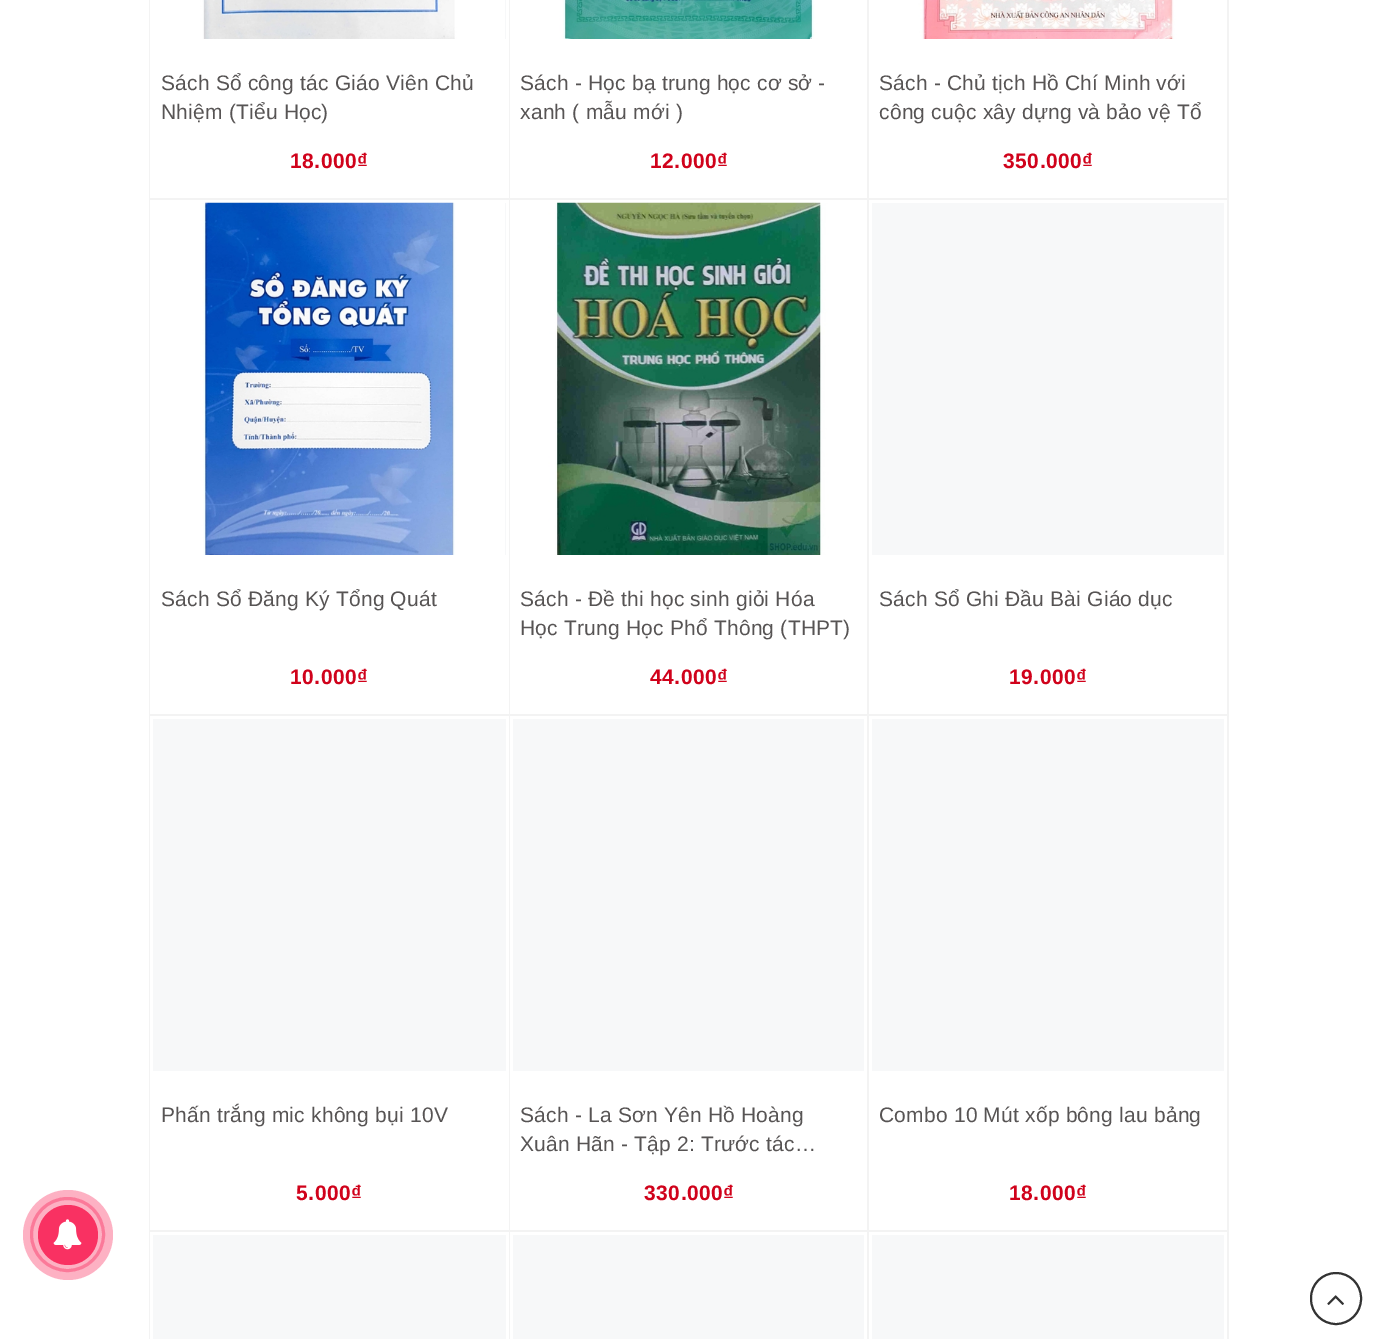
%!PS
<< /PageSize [1377 1339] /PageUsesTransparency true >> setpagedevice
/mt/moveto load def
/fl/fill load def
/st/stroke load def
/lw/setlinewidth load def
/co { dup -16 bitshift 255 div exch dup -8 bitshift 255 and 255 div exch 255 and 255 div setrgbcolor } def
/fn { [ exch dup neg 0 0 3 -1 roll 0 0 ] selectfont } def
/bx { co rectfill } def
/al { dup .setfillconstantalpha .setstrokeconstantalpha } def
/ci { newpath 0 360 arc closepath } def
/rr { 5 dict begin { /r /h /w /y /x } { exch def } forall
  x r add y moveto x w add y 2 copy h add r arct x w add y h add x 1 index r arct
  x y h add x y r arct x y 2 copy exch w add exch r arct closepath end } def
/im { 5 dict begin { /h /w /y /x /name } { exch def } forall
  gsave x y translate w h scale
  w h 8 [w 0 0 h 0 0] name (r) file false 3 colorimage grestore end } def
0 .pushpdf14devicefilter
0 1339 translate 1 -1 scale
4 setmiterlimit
0 0 1377 1339 16#FFFFFF bx
149 0 1 1339 16#F3F3F3 bx
509 0 1 1339 16#F3F3F3 bx
150 198 360 2 16#F3F3F3 bx
505 0 1 39 16#F7F8F9 bx
(media/1.raw) 153 0 352 39 im
867 0 2 1339 16#F3F3F3 bx
510 198 359 2 16#F3F3F3 bx
(media/2.raw) 513 0 351 39 im
1227 0 2 1339 16#F3F3F3 bx
869 198 360 2 16#F3F3F3 bx
(media/3.raw) 872 0 352 39 im
150 714 1079 2 16#F3F3F3 bx
505 203 1 352 16#F7F8F9 bx
(media/4.raw) 153 202 352 353 im
(media/5.raw) 513 202 351 353 im
872 203 352 352 16#F7F8F9 bx
150 1230 1079 2 16#F3F3F3 bx
153 719 353 352 16#F7F8F9 bx
513 719 351 352 16#F7F8F9 bx
872 719 352 352 16#F7F8F9 bx
153 1235 353 104 16#F7F8F9 bx
513 1235 351 104 16#F7F8F9 bx
872 1235 352 104 16#F7F8F9 bx
16#333333 co
2 lw
1311 1273 50 51 25 rr st
(media/6.raw) 1327 1295 17 10 im
16#FDA5BA co
3 lw
67.5 1234.5 36 ci st
0.38 al
16#F93162 co
68 1235 45 ci fl
1 al
68 1235 30 ci fl
(media/7.raw) 53 1219 29 31 im
/LiberationSans-Regular 21 fn
16#575454 co
161 90 mt .2 0 (Sách Sổ công tác Giáo Viên Chủ) ashow
161 119 mt .2 0 (Nhiệm \(Tiểu Học\)) ashow
/LiberationSans-Bold 21 fn
16#D0021B co
290 168 mt .5 0 (18.000₫) ashow
/LiberationSans-Regular 21 fn
16#575454 co
520 90 mt .2 0 (Sách - Học bạ trung học cơ sở -) ashow
520 119 mt .2 0 (xanh \( mẫu mới \)) ashow
/LiberationSans-Bold 21 fn
16#D0021B co
650 168 mt .5 0 (12.000₫) ashow
/LiberationSans-Regular 21 fn
16#575454 co
879 90 mt .2 0 (Sách - Chủ tịch Hồ Chí Minh với) ashow
879 119 mt .2 0 (công cuộc xây dựng và bảo vệ Tổ) ashow
/LiberationSans-Bold 21 fn
16#D0021B co
1003 168 mt .5 0 (350.000₫) ashow
/LiberationSans-Regular 21 fn
16#575454 co
161 606 mt .2 0 (Sách Sổ Đăng Ký Tổng Quát) ashow
/LiberationSans-Bold 21 fn
16#D0021B co
290 684 mt .5 0 (10.000₫) ashow
/LiberationSans-Regular 21 fn
16#575454 co
520 606 mt .2 0 (Sách - Đề thi học sinh giỏi Hóa) ashow
520 635 mt .2 0 (Học Trung Học Phổ Thông \(THPT\)) ashow
/LiberationSans-Bold 21 fn
16#D0021B co
650 684 mt .5 0 (44.000₫) ashow
/LiberationSans-Regular 21 fn
16#575454 co
879 606 mt .2 0 (Sách Sổ Ghi Đầu Bài Giáo dục) ashow
/LiberationSans-Bold 21 fn
16#D0021B co
1009 684 mt .5 0 (19.000₫) ashow
/LiberationSans-Regular 21 fn
16#575454 co
161 1122 mt .2 0 (Phấn trắng mic không bụi 10V) ashow
/LiberationSans-Bold 21 fn
16#D0021B co
296 1200 mt .5 0 (5.000₫) ashow
/LiberationSans-Regular 21 fn
16#575454 co
520 1122 mt .2 0 (Sách - La Sơn Yên Hồ Hoàng) ashow
520 1151 mt .2 0 (Xuân Hãn - Tập 2: Trước tác…) ashow
/LiberationSans-Bold 21 fn
16#D0021B co
644 1200 mt .5 0 (330.000₫) ashow
/LiberationSans-Regular 21 fn
16#575454 co
879 1122 mt .2 0 (Combo 10 Mút xốp bông lau bảng) ashow
/LiberationSans-Bold 21 fn
16#D0021B co
1009 1200 mt .5 0 (18.000₫) ashow
.poppdf14devicefilter showpage
